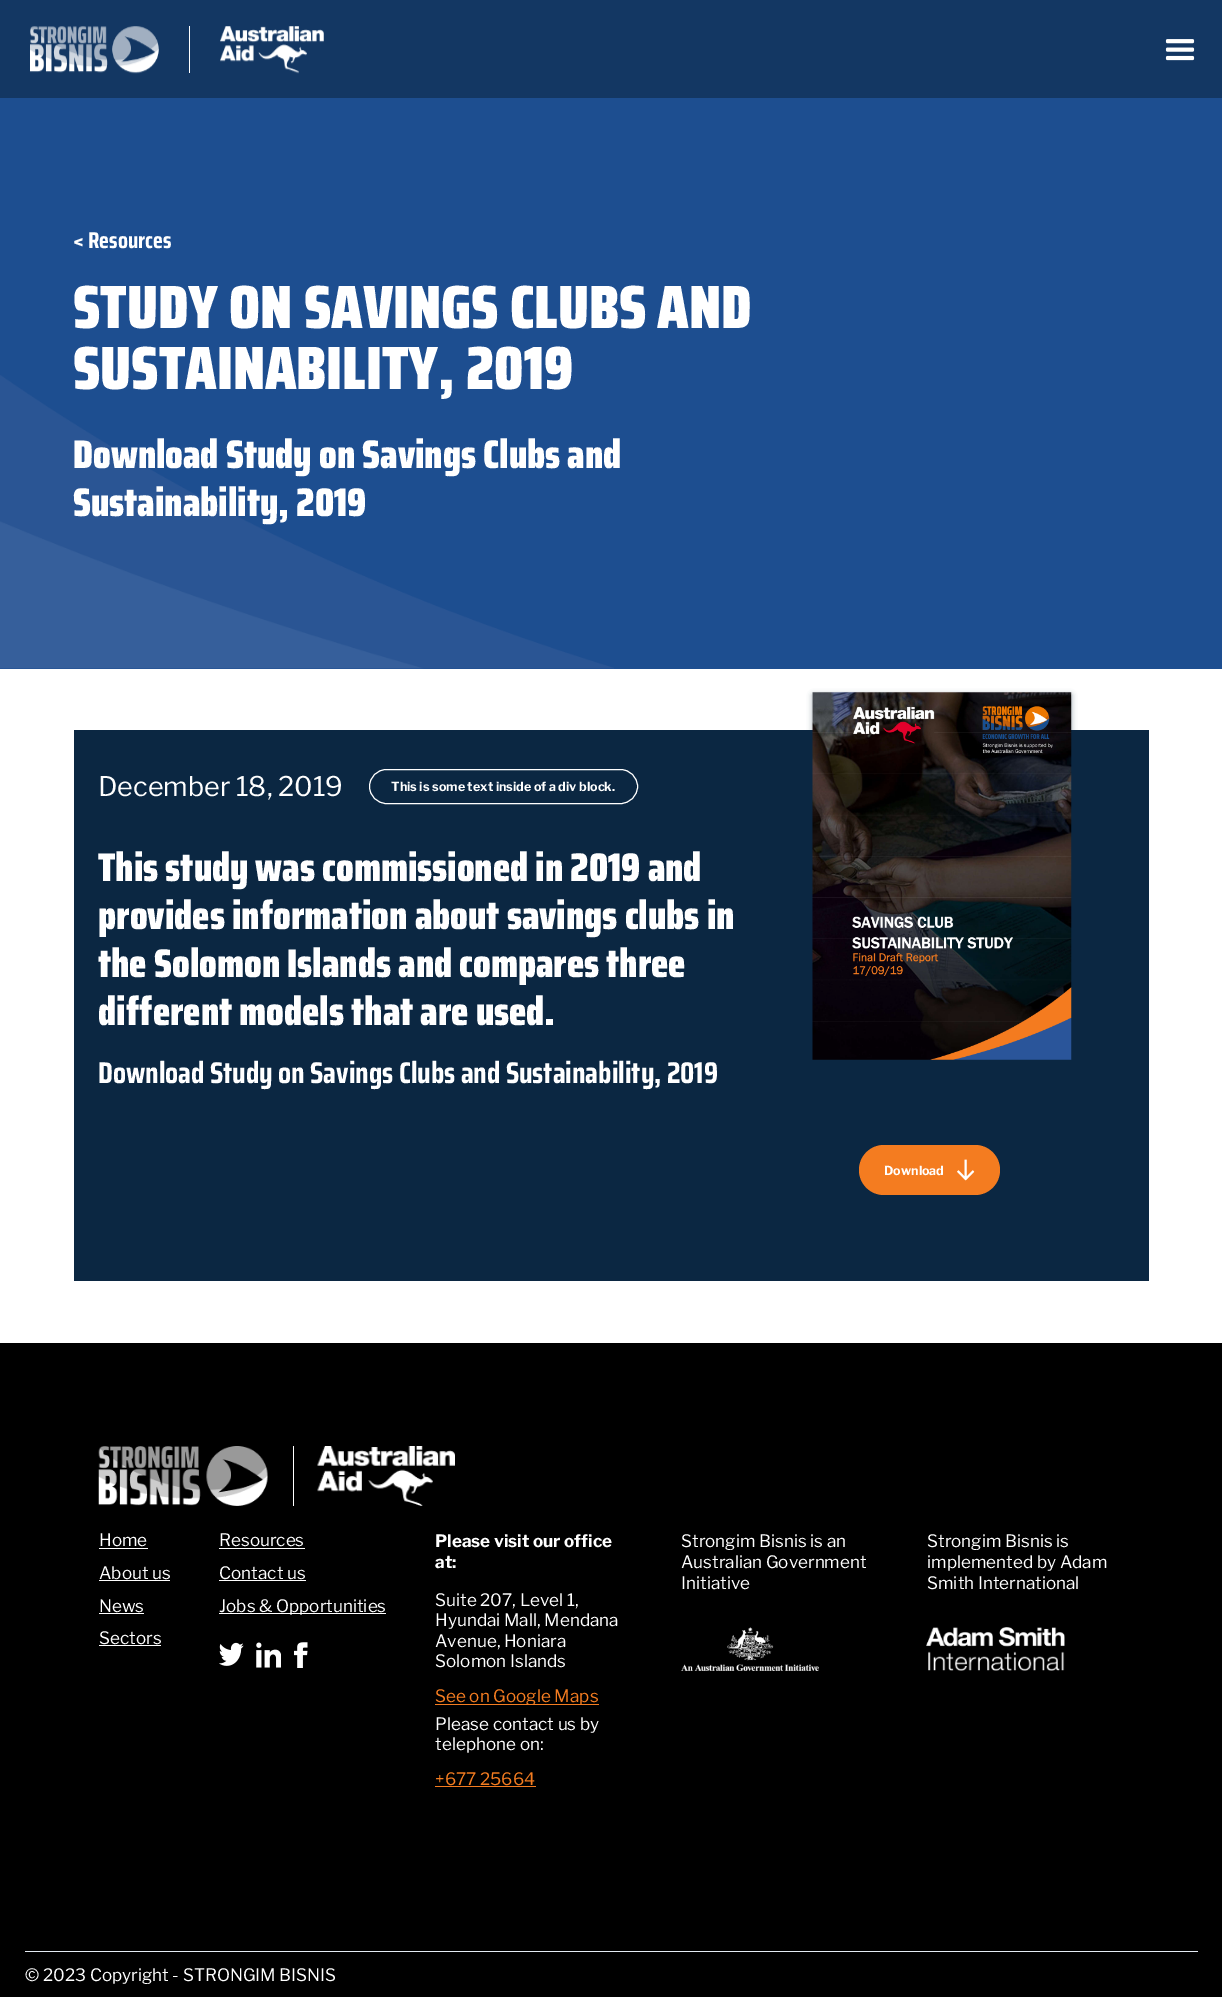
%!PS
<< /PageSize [1222 1997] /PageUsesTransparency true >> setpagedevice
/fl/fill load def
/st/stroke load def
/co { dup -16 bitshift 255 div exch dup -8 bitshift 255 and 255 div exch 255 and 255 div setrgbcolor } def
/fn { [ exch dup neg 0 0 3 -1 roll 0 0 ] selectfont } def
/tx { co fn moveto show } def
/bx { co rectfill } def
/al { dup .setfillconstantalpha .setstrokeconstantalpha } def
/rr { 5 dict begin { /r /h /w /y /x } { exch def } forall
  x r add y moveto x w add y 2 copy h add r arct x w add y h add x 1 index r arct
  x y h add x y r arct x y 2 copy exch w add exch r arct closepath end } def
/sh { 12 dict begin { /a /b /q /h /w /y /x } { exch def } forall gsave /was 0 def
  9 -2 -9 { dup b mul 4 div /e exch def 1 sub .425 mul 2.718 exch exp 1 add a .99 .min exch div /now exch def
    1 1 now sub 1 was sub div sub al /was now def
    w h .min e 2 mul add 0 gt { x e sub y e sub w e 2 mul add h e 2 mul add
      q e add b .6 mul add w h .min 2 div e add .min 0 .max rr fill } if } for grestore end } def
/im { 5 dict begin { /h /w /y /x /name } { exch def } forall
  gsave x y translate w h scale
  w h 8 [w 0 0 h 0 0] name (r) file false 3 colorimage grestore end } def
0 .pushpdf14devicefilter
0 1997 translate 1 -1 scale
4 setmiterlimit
0 0 1222 1997 16#FFFFFF bx
0 98 1222 571 16#1D4E90 bx
(media/1.raw) 0 375 614 294 im
0 0 1222 98 16#133763 bx
(media/2.raw) 30 26 129 48 im
189 26 1 47 16#FFFFFF bx
(media/3.raw) 220 26 104 48 im
(media/4.raw) 1165 39 30 22 im
74 730 1075 551 16#0B2742 bx
16#FFFFFF co
369.5 769.5 268 34 17 rr st
16#0B2742 co
813 695 258 368 0 3 .5 sh
(media/5.raw) 812 692 260 368 im
16#F47C20 co
859 1145 141 50 25 rr fl
(media/6.raw) 957 1159 18 22 im
0 1343 1222 654 16#000000 bx
(media/7.raw) 98 1446 170 60 im
293 1446 1 60 16#FFFFFF bx
(media/8.raw) 317 1446 138 60 im
99 1548 49 1 16#FFFFFF bx
99 1580 71 1 16#FFFFFF bx
99 1613 45 1 16#FFFFFF bx
99 1645 62 1 16#FFFFFF bx
219 1548 86 1 16#FFFFFF bx
219 1580 87 1 16#FFFFFF bx
219 1613 167 1 16#FFFFFF bx
(media/9.raw) 219 1642 25 24 im
(media/10.raw) 256 1642 25 26 im
(media/11.raw) 294 1642 14 26 im
435 1704 164 1 16#F47C20 bx
435 1786 101 1 16#F47C20 bx
(media/12.raw) 681 1627 138 44 im
(media/13.raw) 926 1627 139 44 im
25 1951 1173 1 16#E4EBF3 bx
(< Resources) 73 248 /SairaCondensed-Bold 23 16#FFFFFF tx
(STUDY ON SAVINGS CLUBS AND) 73 328 /SairaCondensed-Black 61.1 16#FFFFFF tx
(SUSTAINABILITY, 2019) 73 389 /SairaCondensed-Black 61.1 16#FFFFFF tx
(Download Study on Savings Clubs and) 73 468 /SairaCondensed-Black 40 16#FFFFFF tx
(Sustainability, 2019) 73 516 /SairaCondensed-Black 40 16#FFFFFF tx
(December 18, 2019) 98 796 /LibreFranklin-Regular 27 16#FFFFFF tx
(This is some text inside of a div block.) 391 791 /LibreFranklin-Bold 12.5 16#FFFFFF tx
(This study was commissioned in 2019 and) 98 881 /SairaCondensed-Black 40 16#FFFFFF tx
(provides information about savings clubs in) 98 929 /SairaCondensed-Black 40 16#FFFFFF tx
(the Solomon Islands and compares three) 98 977 /SairaCondensed-Black 40 16#FFFFFF tx
(different models that are used.) 98 1025 /SairaCondensed-Black 40 16#FFFFFF tx
(Download Study on Savings Clubs and Sustainability, 2019) 98 1083 /SairaCondensed-Bold 30 16#FFFFFF tx
(Download) 884 1175 /LibreFranklin-Bold 12.5 16#FFFFFF tx
(Home) 99 1546 /LibreFranklin-Regular 17.1 16#FFFFFF tx
(About us) 99 1579 /LibreFranklin-Regular 17.1 16#FFFFFF tx
(News) 99 1612 /LibreFranklin-Regular 17.1 16#FFFFFF tx
(Sectors) 99 1644 /LibreFranklin-Regular 17.1 16#FFFFFF tx
(Resources) 219 1546 /LibreFranklin-Regular 17.1 16#FFFFFF tx
(Contact us) 219 1579 /LibreFranklin-Regular 17.1 16#FFFFFF tx
(Jobs & Opportunities) 219 1612 /LibreFranklin-Regular 17.1 16#FFFFFF tx
(Please visit our office) 435 1547 /LibreFranklin-Bold 17.1 16#FFFFFF tx
(at:) 435 1568 /LibreFranklin-Bold 17.1 16#FFFFFF tx
(Suite 207, Level 1,) 435 1606 /LibreFranklin-Regular 17.1 16#FFFFFF tx
(Hyundai Mall, Mendana) 435 1626 /LibreFranklin-Regular 17.1 16#FFFFFF tx
(Avenue, Honiara) 435 1647 /LibreFranklin-Regular 17.1 16#FFFFFF tx
(Solomon Islands) 435 1667 /LibreFranklin-Regular 17.1 16#FFFFFF tx
(See on Google Maps) 435 1702 /LibreFranklin-Regular 17.1 16#F47C20 tx
(Please contact us by) 435 1730 /LibreFranklin-Regular 17.1 16#FFFFFF tx
(telephone on:) 435 1750 /LibreFranklin-Regular 17.1 16#FFFFFF tx
(+677 25664) 435 1785 /LibreFranklin-Regular 17.1 16#F47C20 tx
(Strongim Bisnis is an) 681 1547 /LibreFranklin-Regular 17.1 16#FFFFFF tx
(Australian Government) 681 1568 /LibreFranklin-Regular 17.1 16#FFFFFF tx
(Initiative) 681 1589 /LibreFranklin-Regular 17.1 16#FFFFFF tx
(Strongim Bisnis is) 927 1547 /LibreFranklin-Regular 17.1 16#FFFFFF tx
(implemented by Adam) 927 1568 /LibreFranklin-Regular 17.1 16#FFFFFF tx
(Smith International) 927 1589 /LibreFranklin-Regular 17.1 16#FFFFFF tx
(© 2023 Copyright - STRONGIM BISNIS) 25 1981 /LibreFranklin-Regular 17.1 16#FFFFFF tx
.poppdf14devicefilter showpage
